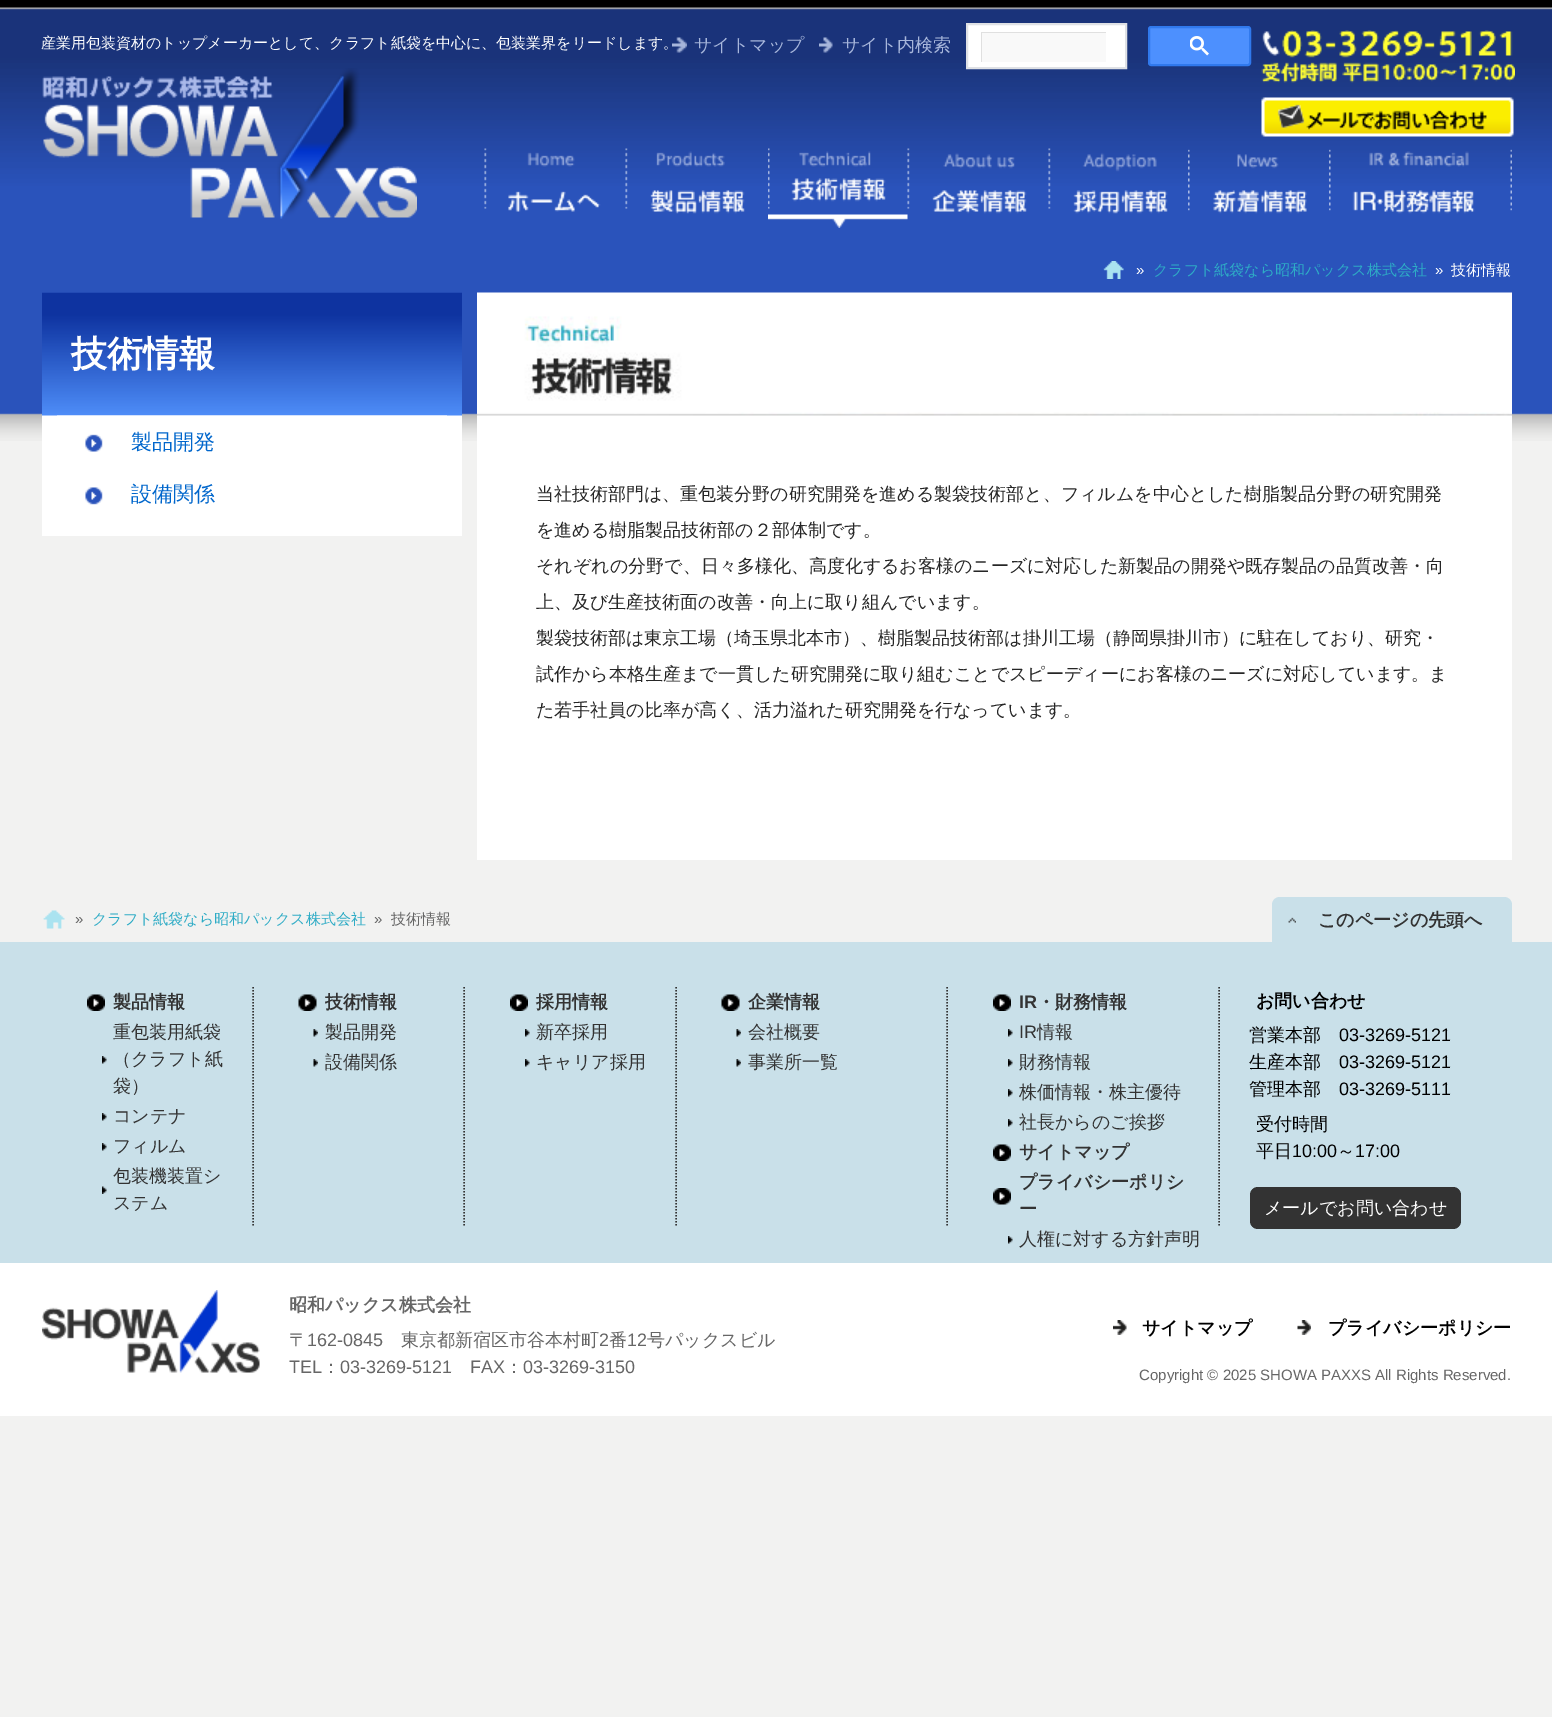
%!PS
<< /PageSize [1552 1717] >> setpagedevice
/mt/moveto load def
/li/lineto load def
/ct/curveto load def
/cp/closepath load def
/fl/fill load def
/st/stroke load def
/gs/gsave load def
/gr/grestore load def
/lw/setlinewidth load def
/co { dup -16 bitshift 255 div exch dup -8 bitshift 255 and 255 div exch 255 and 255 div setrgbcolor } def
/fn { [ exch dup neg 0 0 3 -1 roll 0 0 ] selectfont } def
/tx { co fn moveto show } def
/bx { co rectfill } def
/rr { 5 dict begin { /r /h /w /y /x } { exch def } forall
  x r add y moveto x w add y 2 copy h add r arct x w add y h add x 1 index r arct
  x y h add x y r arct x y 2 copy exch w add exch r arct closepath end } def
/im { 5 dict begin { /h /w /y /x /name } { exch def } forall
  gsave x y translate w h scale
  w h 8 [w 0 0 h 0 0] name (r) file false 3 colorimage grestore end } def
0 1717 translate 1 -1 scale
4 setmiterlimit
0 0 1552 1717 16#F2F2F1 bx
(media/1.raw) 0 0 1552 441 im
(media/2.raw) 672 37 15 16 im
(media/3.raw) 819 37 14 16 im
16#FFFFFF co
967 24 mt 1126 24 li 1126 68 li 967 68 li cp gs fl gr
16#DFE1E5 co
2 lw
st
982 33 124 29 16#F9F9F9 bx
gs
981 32 125 30 rectclip
16#E0E0E0 co
832 -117 mt 1254 -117 li 1254 210 li 832 210 li cp 982 33 mt 1107 33 li 1107 63 li 982 63 li cp eofill
gr
16#4D90FE co
1149 27 101 38 2 rr gs fl gr
16#3079ED co
st
(media/4.raw) 1190 36 19 20 im
(media/5.raw) 1261 30 254 53 im
(media/6.raw) 1261 97 253 40 im
(media/7.raw) 42 68 375 151 im
(media/8.raw) 484 148 117 64 im
(media/9.raw) 625 148 120 66 im
(media/10.raw) 768 148 140 80 im
(media/11.raw) 907 148 120 66 im
(media/12.raw) 1048 148 120 66 im
(media/13.raw) 1188 149 119 65 im
(media/14.raw) 1329 149 183 65 im
(media/15.raw) 1103 261 21 18 im
42 415 420 121 16#FFFFFF bx
(media/16.raw) 42 292 420 124 im
(media/17.raw) 57 415 390 37 im
(media/18.raw) 85 487 18 18 im
477 415 1035 445 16#FFFFFF bx
(media/19.raw) 477 292 1035 124 im
(media/20.raw) 43 910 22 19 im
16#C9E0E9 co
1280 897 mt 1504 897 li 1508.5 897 1512 900.5 1512 905 ct 1512 942 li 1272 942 li 1272 905 li 1272 900.5 1275.5 897 1280 897 ct cp fl
(media/21.raw) 1288 917 8 6 im
0 942 1552 321 16#C9E0E9 bx
16#333333 co
1.5 lw
[1.5 1.5] 0 setdash
253 987 mt 253 1227 li st
(media/22.raw) 87 994 18 17 im
(media/23.raw) 102 1056 5 8 im
(media/23.raw) 102 1113 5 8 im
(media/23.raw) 102 1143 5 8 im
(media/24.raw) 102 1186 5 8 im
464 987 mt 464 1227 li st
(media/25.raw) 298 994 19 17 im
(media/26.raw) 313 1029 5 8 im
(media/26.raw) 313 1059 5 8 im
676 987 mt 676 1227 li st
(media/27.raw) 510 994 18 17 im
(media/28.raw) 525 1029 5 8 im
(media/28.raw) 525 1059 5 8 im
947 987 mt 947 1227 li st
(media/29.raw) 721 994 19 17 im
(media/30.raw) 736 1029 5 8 im
(media/30.raw) 736 1059 5 8 im
1219 987 mt 1219 1227 li st
(media/22.raw) 993 994 18 17 im
(media/23.raw) 1008 1029 5 8 im
(media/23.raw) 1008 1059 5 8 im
(media/23.raw) 1008 1089 5 8 im
(media/23.raw) 1008 1119 5 8 im
(media/22.raw) 993 1144 18 17 im
(media/31.raw) 993 1188 18 17 im
(media/23.raw) 1008 1236 5 8 im
1250 1187 211 42 8 rr fl
0 1263 1552 153 16#FFFFFF bx
(media/32.raw) 42 1290 218 83 im
(media/33.raw) 1113 1320 14 15 im
(media/34.raw) 1297 1320 14 15 im
(産業用包装資材のトップメーカーとして、クラフト紙袋を中心に、包装業界をリードします。) 41 48 /WenQuanYiZenHei-Medium 15 16#FFFFFF tx
(サイトマップ) 694 51 /WenQuanYiZenHei-Medium 18 16#A7B6DB tx
(サイト内検索) 842 51 /WenQuanYiZenHei-Medium 18 16#A7B6DB tx
(») 1136 275 /LiberationSans-Regular 15 16#FFFFFF tx
(クラフト紙袋なら昭和パックス株式会社) 1153 275 /WenQuanYiZenHei-Medium 15 16#2EACC6 tx
(») 1435 275 /LiberationSans-Regular 15 16#FFFFFF tx
(技術情報) 1451 275 /WenQuanYiZenHei-Medium 15 16#FFFFFF tx
(技術情報) 71 366 /WenQuanYiZenHei-Bold 36 16#FFFFFF tx
(製品開発) 131 449 /WenQuanYiZenHei-Medium 21 16#0066CC tx
(設備関係) 131 501 /WenQuanYiZenHei-Medium 21 16#0066CC tx
(当社技術部門は、重包装分野の研究開発を進める製袋技術部と、フィルムを中心とした樹脂製品分野の研究開発) 536 500 /WenQuanYiZenHei-Medium 18 16#262626 tx
(を進める樹脂製品技術部の２部体制です。) 536 536 /WenQuanYiZenHei-Medium 18 16#262626 tx
(それぞれの分野で、日々多様化、高度化するお客様のニーズに対応した新製品の開発や既存製品の品質改善・向) 536 572 /WenQuanYiZenHei-Medium 18 16#262626 tx
(上、及び生産技術面の改善・向上に取り組んでいます。) 536 608 /WenQuanYiZenHei-Medium 18 16#262626 tx
(製袋技術部は東京工場（埼玉県北本市）、樹脂製品技術部は掛川工場（静岡県掛川市）に駐在しており、研究・) 536 644 /WenQuanYiZenHei-Medium 18 16#262626 tx
(試作から本格生産まで一貫した研究開発に取り組むことでスピーディーにお客様のニーズに対応しています。ま) 536 680 /WenQuanYiZenHei-Medium 18 16#262626 tx
(た若手社員の比率が高く、活力溢れた研究開発を行なっています。) 536 716 /WenQuanYiZenHei-Medium 18 16#262626 tx
(») 75 924 /LiberationSans-Regular 15 16#666666 tx
(クラフト紙袋なら昭和パックス株式会社) 92 924 /WenQuanYiZenHei-Medium 15 16#2EACC6 tx
(») 374 924 /LiberationSans-Regular 15 16#666666 tx
(技術情報) 391 924 /WenQuanYiZenHei-Medium 15 16#666666 tx
(このページの先頭へ) 1318 926 /WenQuanYiZenHei-Bold 18 16#333333 tx
(製品情報) 113 1008 /WenQuanYiZenHei-Bold 18 16#333333 tx
(重包装用紙袋) 113 1038 /WenQuanYiZenHei-Medium 18 16#333333 tx
(（クラフト紙) 113 1065 /WenQuanYiZenHei-Medium 18 16#333333 tx
(袋）) 113 1092 /WenQuanYiZenHei-Medium 18 16#333333 tx
(コンテナ) 113 1122 /WenQuanYiZenHei-Medium 18 16#333333 tx
(フィルム) 113 1152 /WenQuanYiZenHei-Medium 18 16#333333 tx
(包装機装置シ) 113 1182 /WenQuanYiZenHei-Medium 18 16#333333 tx
(ステム) 113 1209 /WenQuanYiZenHei-Medium 18 16#333333 tx
(技術情報) 325 1008 /WenQuanYiZenHei-Bold 18 16#333333 tx
(製品開発) 325 1038 /WenQuanYiZenHei-Medium 18 16#333333 tx
(設備関係) 325 1068 /WenQuanYiZenHei-Medium 18 16#333333 tx
(採用情報) 536 1008 /WenQuanYiZenHei-Bold 18 16#333333 tx
(新卒採用) 536 1038 /WenQuanYiZenHei-Medium 18 16#333333 tx
(キャリア採用) 536 1068 /WenQuanYiZenHei-Medium 18 16#333333 tx
(企業情報) 748 1008 /WenQuanYiZenHei-Bold 18 16#333333 tx
(会社概要) 748 1038 /WenQuanYiZenHei-Medium 18 16#333333 tx
(事業所一覧) 748 1068 /WenQuanYiZenHei-Medium 18 16#333333 tx
(IR) 1019 1008 /LiberationSans-Bold 18 16#333333 tx
(・財務情報) 1037 1008 /WenQuanYiZenHei-Bold 18 16#333333 tx
(IR) 1019 1038 /LiberationSans-Regular 18 16#333333 tx
(情報) 1037 1038 /WenQuanYiZenHei-Medium 18 16#333333 tx
(財務情報) 1019 1068 /WenQuanYiZenHei-Medium 18 16#333333 tx
(株価情報・株主優待) 1019 1098 /WenQuanYiZenHei-Medium 18 16#333333 tx
(社長からのご挨拶) 1019 1128 /WenQuanYiZenHei-Medium 18 16#333333 tx
(サイトマップ) 1019 1158 /WenQuanYiZenHei-Bold 18 16#333333 tx
(プライバシーポリシ) 1019 1188 /WenQuanYiZenHei-Bold 18 16#333333 tx
(ー) 1019 1215 /WenQuanYiZenHei-Bold 18 16#333333 tx
(人権に対する方針声明) 1019 1245 /WenQuanYiZenHei-Medium 18 16#333333 tx
(お問い合わせ) 1256 1007 /WenQuanYiZenHei-Bold 18 16#000000 tx
(営業本部) 1249 1041 /WenQuanYiZenHei-Medium 18 16#000000 tx
(03-3269-5121) 1339 1041 /LiberationSans-Regular 18 16#000000 tx
(生産本部) 1249 1068 /WenQuanYiZenHei-Medium 18 16#000000 tx
(03-3269-5121) 1339 1068 /LiberationSans-Regular 18 16#000000 tx
(管理本部) 1249 1095 /WenQuanYiZenHei-Medium 18 16#000000 tx
(03-3269-5111) 1339 1095 /LiberationSans-Regular 18 16#000000 tx
(受付時間) 1256 1130 /WenQuanYiZenHei-Medium 18 16#000000 tx
(平日) 1256 1157 /WenQuanYiZenHei-Medium 18 16#000000 tx
(10:00) 1292 1157 /LiberationSans-Regular 18 16#000000 tx
(～) 1337 1157 /WenQuanYiZenHei-Medium 18 16#000000 tx
(17:00) 1355 1157 /LiberationSans-Regular 18 16#000000 tx
(メールでお問い合わせ) 1264 1214 /WenQuanYiZenHei-Medium 18 16#FFFFFF tx
(昭和パックス株式会社) 289 1311 /WenQuanYiZenHei-Bold 18 16#666666 tx
(〒) 289 1346 /WenQuanYiZenHei-Medium 18 16#666666 tx
(162-0845) 307 1346 /LiberationSans-Regular 18 16#666666 tx
(東京都新宿区市谷本村町) 401 1346 /WenQuanYiZenHei-Medium 18 16#666666 tx
(2) 599 1346 /LiberationSans-Regular 18 16#666666 tx
(番) 609 1346 /WenQuanYiZenHei-Medium 18 16#666666 tx
(12) 627 1346 /LiberationSans-Regular 18 16#666666 tx
(号パックスビル) 647 1346 /WenQuanYiZenHei-Medium 18 16#666666 tx
(TEL) 289 1373 /LiberationSans-Regular 18 16#666666 tx
(：) 322 1373 /WenQuanYiZenHei-Medium 18 16#666666 tx
(03-3269-5121) 340 1373 /LiberationSans-Regular 18 16#666666 tx
(FAX) 470 1373 /LiberationSans-Regular 18 16#666666 tx
(：) 505 1373 /WenQuanYiZenHei-Medium 18 16#666666 tx
(03-3269-3150) 523 1373 /LiberationSans-Regular 18 16#666666 tx
(サイトマップ) 1142 1334 /WenQuanYiZenHei-Bold 18 16#000000 tx
(プライバシーポリシー) 1328 1334 /WenQuanYiZenHei-Bold 18 16#000000 tx
(Copyright © 2025 SHOWA PAXXS All Rights Reserved.) 1139 1380 /LiberationSans-Regular 15 16#666666 tx
showpage
